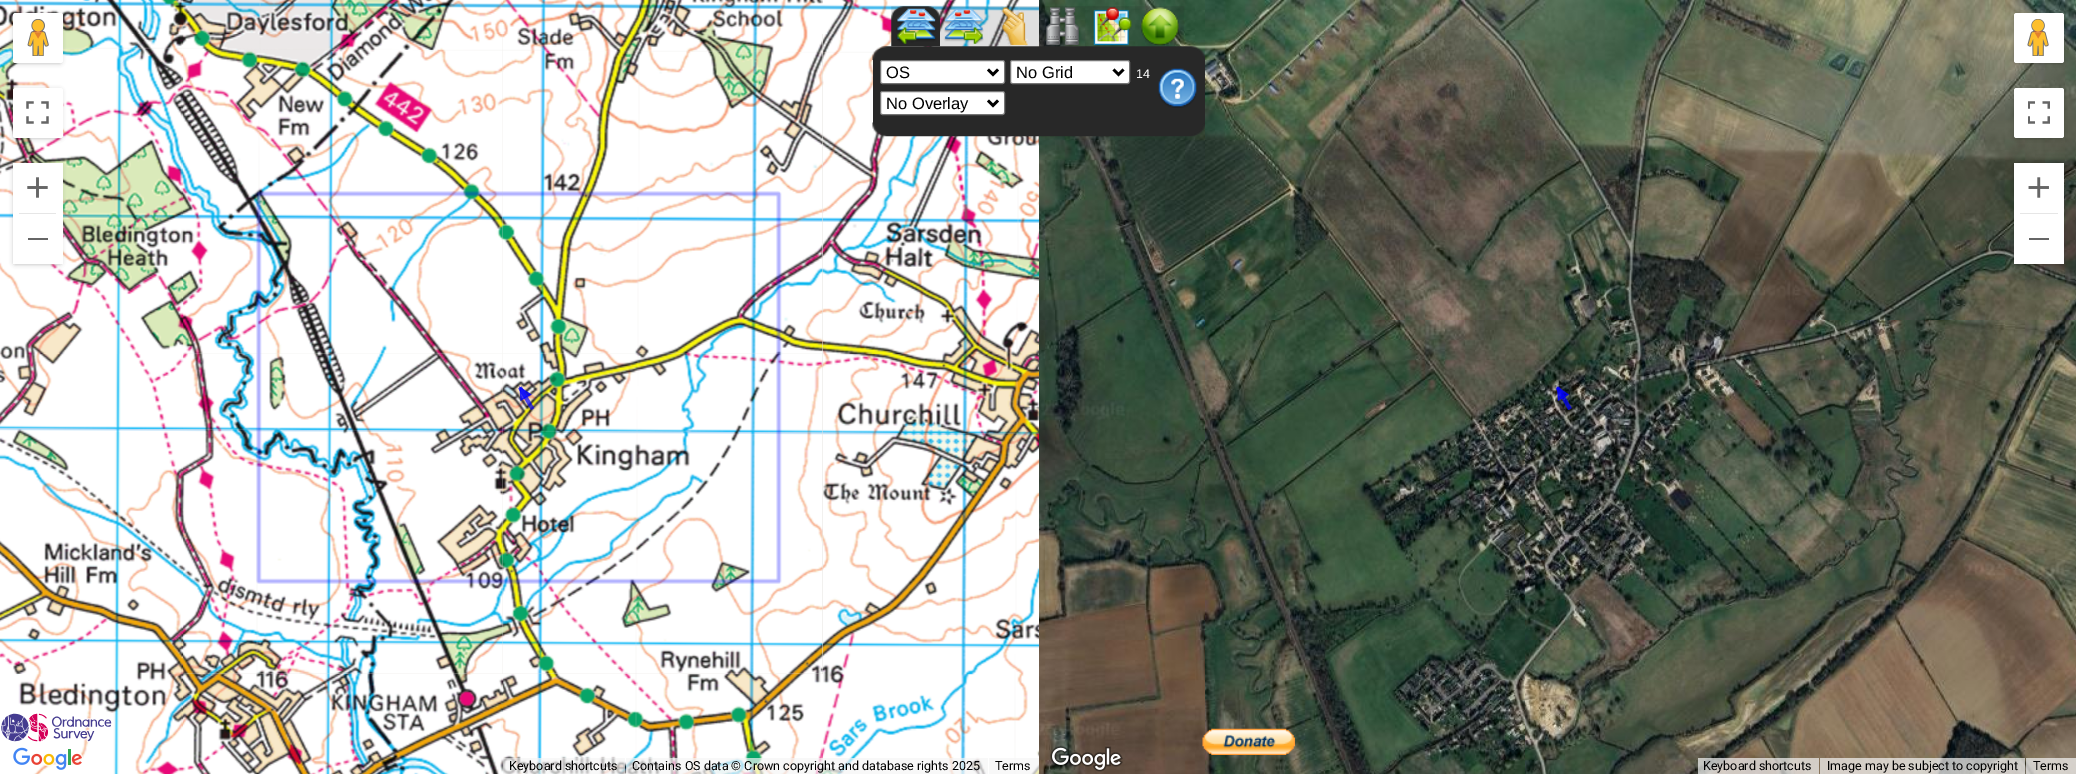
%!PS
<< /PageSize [2076 774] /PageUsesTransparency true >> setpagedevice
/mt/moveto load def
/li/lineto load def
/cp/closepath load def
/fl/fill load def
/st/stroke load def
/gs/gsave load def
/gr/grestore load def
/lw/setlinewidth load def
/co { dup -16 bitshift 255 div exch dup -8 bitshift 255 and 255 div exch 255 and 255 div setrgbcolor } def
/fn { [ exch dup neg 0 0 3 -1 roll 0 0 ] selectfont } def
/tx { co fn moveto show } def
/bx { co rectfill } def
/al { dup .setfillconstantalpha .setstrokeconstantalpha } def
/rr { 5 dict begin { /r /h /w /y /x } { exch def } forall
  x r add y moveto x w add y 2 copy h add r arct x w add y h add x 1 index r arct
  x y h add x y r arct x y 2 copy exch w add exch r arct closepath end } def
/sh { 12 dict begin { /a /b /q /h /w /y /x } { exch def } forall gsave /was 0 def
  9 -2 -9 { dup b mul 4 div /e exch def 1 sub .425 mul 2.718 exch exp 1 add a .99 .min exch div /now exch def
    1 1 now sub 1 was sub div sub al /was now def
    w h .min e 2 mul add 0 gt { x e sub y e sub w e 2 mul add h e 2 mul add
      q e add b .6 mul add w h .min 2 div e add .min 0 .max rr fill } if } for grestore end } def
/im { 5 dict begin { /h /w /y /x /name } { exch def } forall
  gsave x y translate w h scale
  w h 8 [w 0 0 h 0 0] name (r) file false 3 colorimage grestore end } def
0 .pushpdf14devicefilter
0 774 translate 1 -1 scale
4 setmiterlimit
0 0 2076 774 16#FFFFFF bx
0 0 1039 774 16#E5E3DF bx
(media/18.raw) 823 34 216 320 im
(media/36.raw) 1039 0 166 320 im
(media/7.raw) 872 46 333 14 im
(media/14.raw) 823 0 216 34 im
(media/1.raw) 891 6 49 41 im
(media/2.raw) 940 6 49 40 im
(media/3.raw) 988 6 50 40 im
(media/4.raw) 1037 6 49 40 im
(media/5.raw) 1086 6 49 40 im
(media/6.raw) 1135 6 49 40 im
873 60 332 63 16#282828 bx
16#FFFFFF co
880.5 60.5 124 23 2 rr gs fl gr
16#767676 co
st
16#000000 co
2.5 lw
988 69.5 mt 993 74.5 li 998 69.5 li st
16#FFFFFF co
1010.5 60.5 119 23 2 rr gs fl gr
16#767676 co
1 lw
st
16#000000 co
2.5 lw
1113.5 69.5 mt 1118.5 74.5 li 1123.5 69.5 li st
(media/8.raw) 1158 68 39 40 im
16#FFFFFF co
880.5 91.5 124 23 2 rr gs fl gr
16#767676 co
1 lw
st
16#000000 co
2.5 lw
988 100.5 mt 993 105.5 li 998 100.5 li st
(media/9.raw) 872 122 333 15 im
(media/44.raw) 1039 640 166 134 im
(media/45.raw) 1205 640 320 134 im
(media/10.raw) 1202 728 93 27 im
(media/21.raw) 502 353 321 321 im
(media/20.raw) 182 353 321 321 im
(media/16.raw) 182 33 321 321 im
(media/11.raw) 0 0 183 34 im
(media/17.raw) 502 33 321 321 im
(media/12.raw) 183 0 320 34 im
(media/13.raw) 503 0 320 34 im
(media/15.raw) 0 34 183 320 im
(media/19.raw) 0 354 183 320 im
(media/22.raw) 823 354 216 320 im
(media/23.raw) 0 674 183 100 im
(media/24.raw) 183 674 320 100 im
(media/25.raw) 503 674 320 100 im
(media/26.raw) 823 674 216 100 im
(media/30.raw) 502 353 280 231 im
(media/29.raw) 256 353 247 231 im
(media/27.raw) 256 191 247 163 im
(media/28.raw) 502 191 280 163 im
0.7 al
16#0000FF co
3.8 lw
520 387.5 mt 532.5 409 li st
530.5 394.5 mt 520 387.5 li 521 400 li cp gs fl gr
1.1 lw
st
1 al
16#000000 co
14 15 47 48 1 2.5 .3 sh
16#FFFFFF co
13 13 50 50 2.5 rr fl
(media/31.raw) 27 19 22 37 im
16#000000 co
14 90 47 48 1 2.5 .3 sh
16#FFFFFF co
13 88 50 50 2.5 rr fl
(media/32.raw) 26 101 23 23 im
16#000000 co
14 165 47 99 1 2.5 .3 sh
13 163 50 101 16#FFFFFF bx
(media/33.raw) 27 177 21 21 im
19 213 37 1 16#E6E6E6 bx
28 238 20 2 16#666666 bx
(media/34.raw) 1 713 111 29 im
(media/35.raw) 13 747 70 23 im
0.7 al
503 758 122 16 16#F5F5F5 bx
626 758 362 16 16#F5F5F5 bx
989 758 50 16 16#F5F5F5 bx
1 al
(media/37.raw) 1205 0 320 320 im
(media/38.raw) 1525 0 320 320 im
(media/39.raw) 1845 0 231 320 im
(media/40.raw) 1039 320 166 320 im
(media/41.raw) 1205 320 320 320 im
(media/42.raw) 1525 320 320 320 im
(media/43.raw) 1845 320 231 320 im
(media/46.raw) 1525 640 320 134 im
(media/47.raw) 1845 640 231 134 im
0.7 al
16#0000FF co
3.8 lw
1557.5 387.5 mt 1570 409 li st
1568 394.5 mt 1557.5 387.5 li 1558.5 400 li cp gs fl gr
1.1 lw
st
1 al
16#000000 co
2015 15 48 48 1 2.5 .3 sh
16#FFFFFF co
2014 13 50 50 2.5 rr fl
(media/48.raw) 2027 19 22 37 im
16#000000 co
2015 90 48 48 1 2.5 .3 sh
16#FFFFFF co
2014 88 50 50 2.5 rr fl
(media/49.raw) 2028 101 22 23 im
16#000000 co
2015 165 48 99 1 2.5 .3 sh
2014 163 50 101 16#FFFFFF bx
(media/50.raw) 2028 177 21 21 im
2020 213 38 1 16#E6E6E6 bx
2029 238 20 2 16#666666 bx
(media/51.raw) 1050 746 73 26 im
0.7 al
1698 758 121 16 16#F5F5F5 bx
1820 758 205 16 16#F5F5F5 bx
2026 758 50 16 16#F5F5F5 bx
1 al
(OS) 886 78 /LiberationSans-Regular 16.5 16#000000 tx
(No Grid) 1016 78 /LiberationSans-Regular 16.5 16#000000 tx
(14) 1136 78 /LiberationSans-Regular 12.5 16#FFFFFF tx
(No Overlay) 886 109 /LiberationSans-Regular 16.5 16#000000 tx
(Keyboard shortcuts) 509 770 /Roboto-Regular 12.5 16#000000 tx
(Contains OS data © Crown copyright and database rights 2025) 632 770 /Roboto-Regular 12.5 16#000000 tx
(Terms) 995 770 /Roboto-Regular 12.5 16#000000 tx
(Keyboard shortcuts) 1703 770 /Roboto-Regular 12.5 16#000000 tx
(Image may be subject to copyright) 1827 770 /Roboto-Regular 12.5 16#000000 tx
(Terms) 2033 770 /Roboto-Regular 12.5 16#000000 tx
.poppdf14devicefilter showpage
